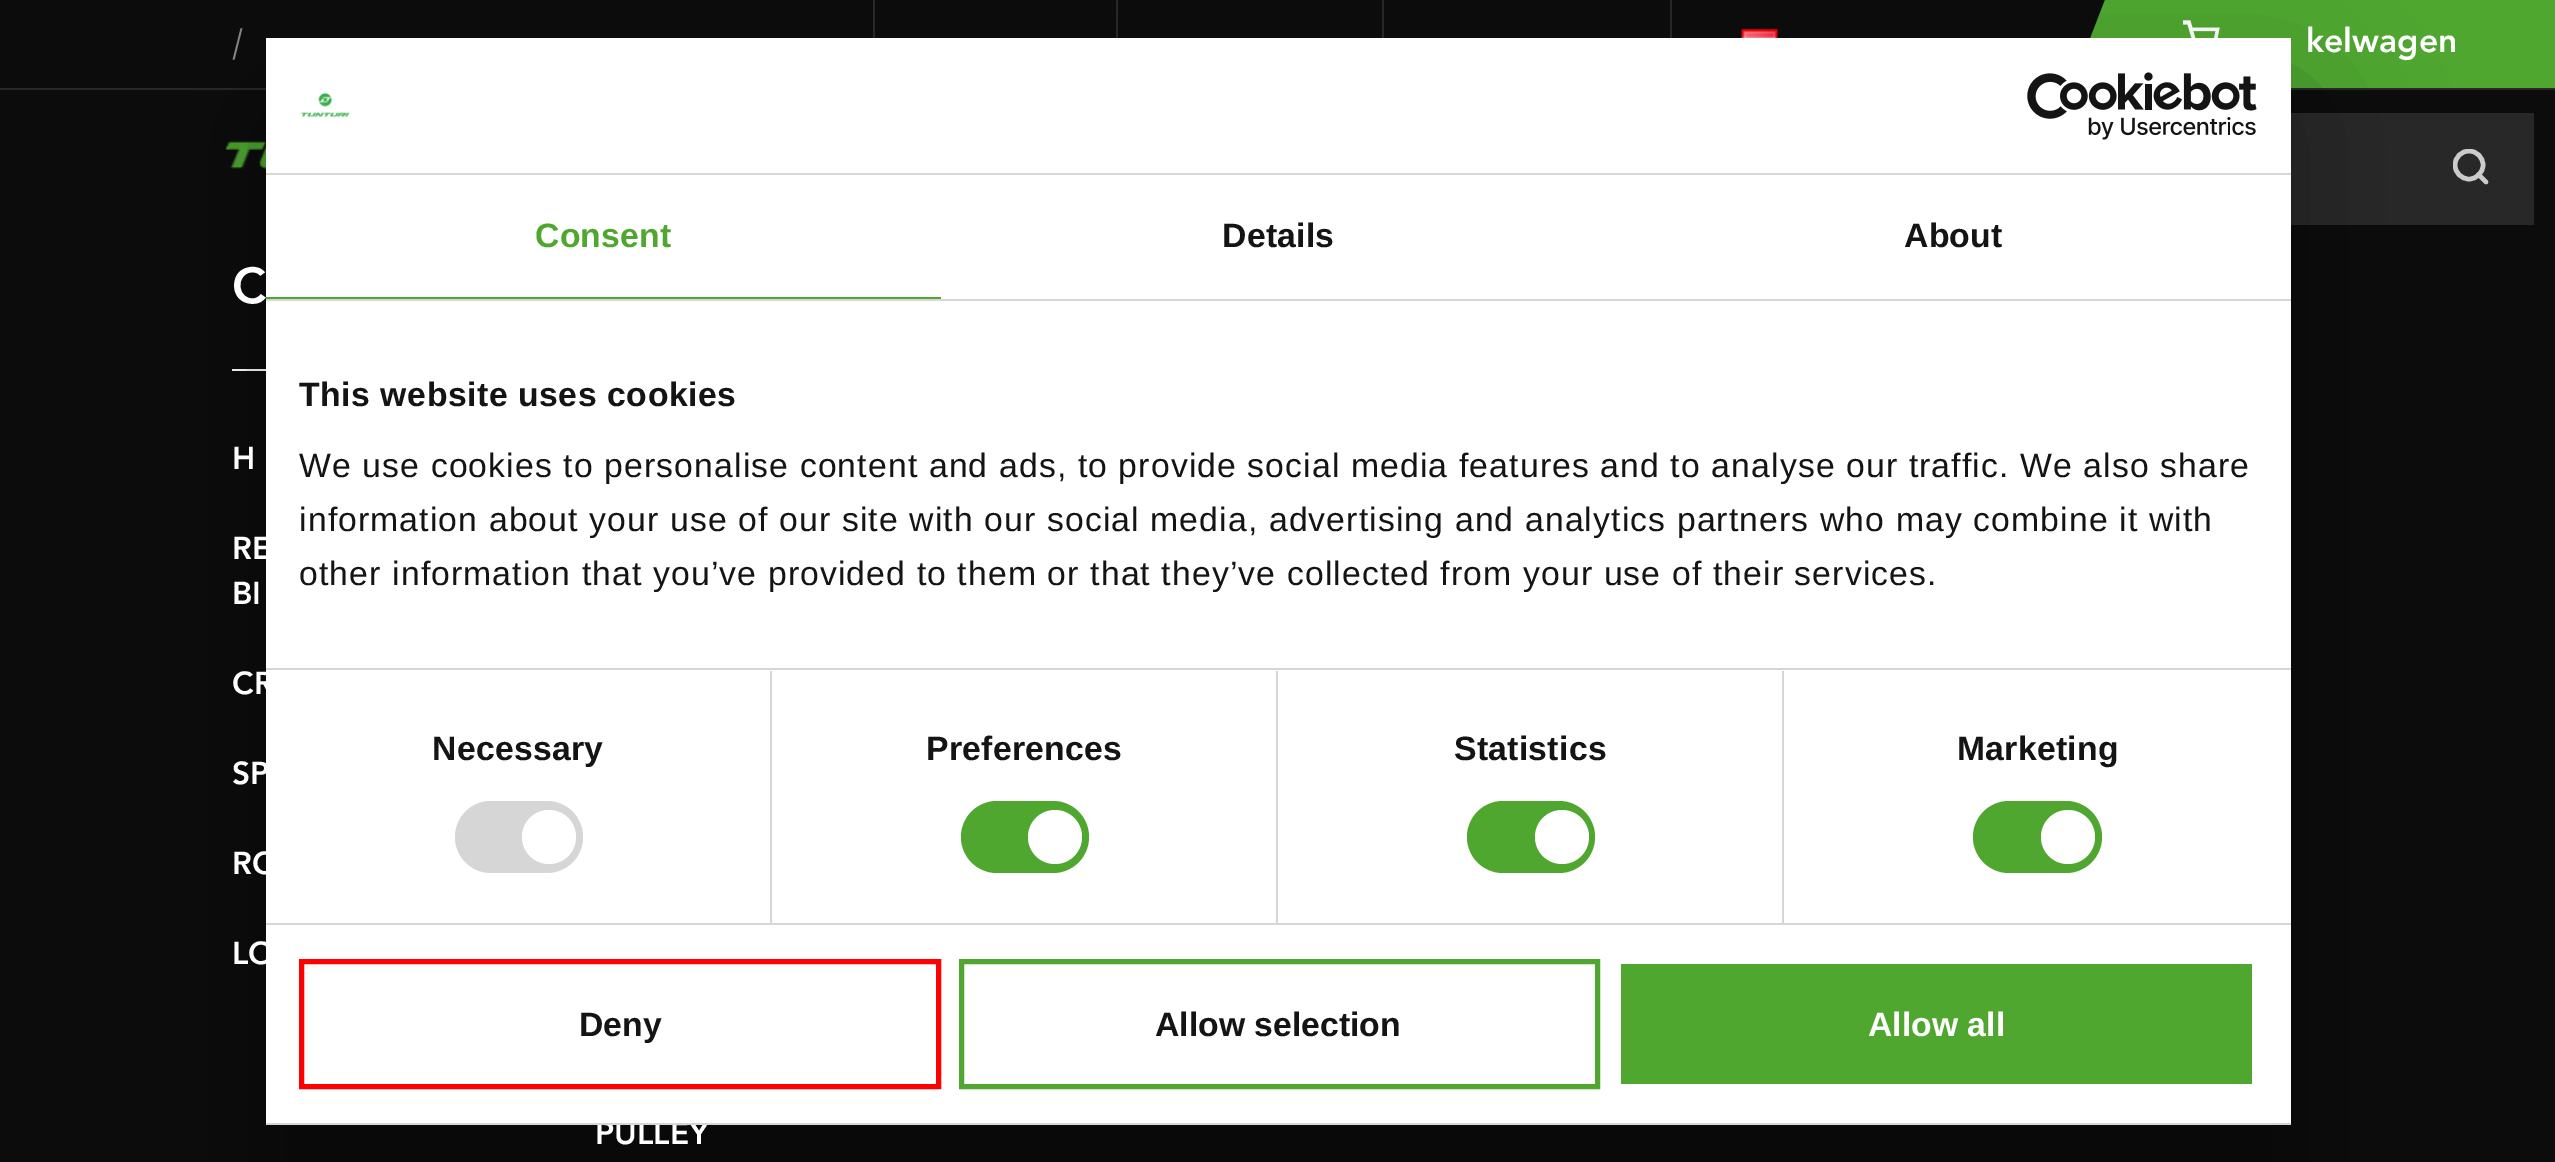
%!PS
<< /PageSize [2555 1162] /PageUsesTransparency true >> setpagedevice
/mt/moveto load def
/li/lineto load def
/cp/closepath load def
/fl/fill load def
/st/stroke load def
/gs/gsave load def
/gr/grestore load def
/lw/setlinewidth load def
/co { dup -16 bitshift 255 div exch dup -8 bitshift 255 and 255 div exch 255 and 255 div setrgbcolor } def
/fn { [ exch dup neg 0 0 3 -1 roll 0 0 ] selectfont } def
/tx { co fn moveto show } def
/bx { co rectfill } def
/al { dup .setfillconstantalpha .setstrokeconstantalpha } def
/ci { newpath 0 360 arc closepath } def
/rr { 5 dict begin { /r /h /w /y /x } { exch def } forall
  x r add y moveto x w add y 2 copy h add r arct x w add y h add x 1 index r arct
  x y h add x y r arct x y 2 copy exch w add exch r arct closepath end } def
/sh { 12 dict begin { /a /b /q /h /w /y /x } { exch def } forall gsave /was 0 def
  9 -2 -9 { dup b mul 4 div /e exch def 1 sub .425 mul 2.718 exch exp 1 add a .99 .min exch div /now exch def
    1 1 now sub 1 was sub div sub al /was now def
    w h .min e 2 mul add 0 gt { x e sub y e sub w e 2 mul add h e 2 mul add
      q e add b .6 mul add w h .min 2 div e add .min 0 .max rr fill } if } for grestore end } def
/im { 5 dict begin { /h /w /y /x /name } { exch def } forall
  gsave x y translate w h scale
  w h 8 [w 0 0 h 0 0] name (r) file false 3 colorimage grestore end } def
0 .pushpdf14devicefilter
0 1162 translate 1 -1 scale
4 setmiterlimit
0 0 2555 1162 16#0C0C0C bx
0 88 2555 2 16#282828 bx
873 0 2 38 16#282828 bx
1116 0 2 38 16#282828 bx
1382 0 2 38 16#282828 bx
1670 0 2 38 16#282828 bx
(media/1.raw) 1741 29 37 9 im
16#4FA730 co
2105 0 mt 2195 0 li 2161 88 li 2071 88 li cp fl
2161 0 394 88 16#4FA730 bx
(media/2.raw) 2183 20 37 18 im
(media/3.raw) 225 140 41 29 im
2291 113 243 112 16#282828 bx
gs
2453 149 36 36 rectclip
16#CCCCCC co
4.5 lw
2469 165 14 ci st
gr
16#CCCCCC co
4.5 lw
1 setlinecap
1 setlinejoin
2486 182 mt 2478.5 174.5 li st
232 369 34 2 16#FFFFFF bx
16#000000 co
266 110 2025 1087 0 76.5 .3 sh
266 38 2025 1085 16#FFFFFF bx
266 173 2025 2 16#D6D6D6 bx
(media/4.raw) 301 92 49 26 im
(media/5.raw) 2027 72 230 68 im
266 299 2025 2 16#D6D6D6 bx
266 297 675 2 16#50A72F bx
266 668 2025 2 16#D6D6D6 bx
266 923 2025 2 16#D6D6D6 bx
770 671 2 252 16#D6D6D6 bx
455 801 128 72 36 rr fl
16#FFFFFF co
549 837 27 ci fl
1276 671 2 252 16#D6D6D6 bx
16#50A72F co
961 801 128 72 36 rr fl
16#FFFFFF co
1055 837 27 ci fl
1782 671 2 252 16#D6D6D6 bx
16#50A72F co
1467 801 128 72 36 rr fl
16#FFFFFF co
1562 837 27 ci fl
16#50A72F co
1973 801 129 72 36 rr fl
16#FFFFFF co
2068 837 27 ci fl
16#FF0000 co
5 lw
0 setlinecap
0 setlinejoin
301.5 961.5 637 125 rectstroke
16#50A72F co
961.5 961.5 636 125 rectstroke
1621 964 631 120 16#50A72F bx
(|) 232 52 /Avenir-Italic 31.5 16#848484 tx
(kelwagen) 2306 52 /Avenir-Black 33.75 16#FFFFFF tx
/LiberationSans-Bold 33.75 fn
16#50A72F co
535 247 mt .25 0 (Consent) ashow
16#141414 co
1222 247 mt .25 0 (Details) ashow
1904 247 mt .25 0 (About) ashow
299 406 mt .55 0 (This website uses cookies) ashow
/LiberationSans-Regular 33.75 fn
299 477 mt 1.12 0 (We use cookies to personalise content and ads, to provide social media features and to analyse our traffic. We also share) ashow
299 531 mt 1.12 0 (information about your use of our site with our social media, advertising and analytics partners who may combine it with) ashow
299 585 mt 1.12 0 (other information that you’ve provided to them or that they’ve collected from your use of their services.) ashow
/LiberationSans-Bold 33.75 fn
432 760 mt .25 0 (Necessary) ashow
926 760 mt .25 0 (Preferences) ashow
1454 760 mt .25 0 (Statistics) ashow
1957 760 mt .25 0 (Marketing) ashow
(Deny) 579 1036 /LiberationSans-Bold 33.75 16#141414 tx
(Allow selection) 1155 1036 /LiberationSans-Bold 33.75 16#141414 tx
(Allow all) 1868 1036 /LiberationSans-Bold 33.75 16#FFFFFF tx
(C) 232 303 /Avenir-Black 50 16#FFFFFF tx
(H) 232 469 /Avenir-Black 31.5 16#FFFFFF tx
(RE) 232 559 /Avenir-Black 31.5 16#FFFFFF tx
(BI) 232 604 /Avenir-Black 31.5 16#FFFFFF tx
(CR) 232 694 /Avenir-Black 31.5 16#FFFFFF tx
(SP) 232 784 /Avenir-Black 31.5 16#FFFFFF tx
(RO) 232 874 /Avenir-Black 31.5 16#FFFFFF tx
(LO) 232 964 /Avenir-Black 31.5 16#FFFFFF tx
(PULLEY) 595 1144 /Avenir-Black 31.5 16#FFFFFF tx
266 1123 2025 2 16#D6D6D6 bx
.poppdf14devicefilter showpage
